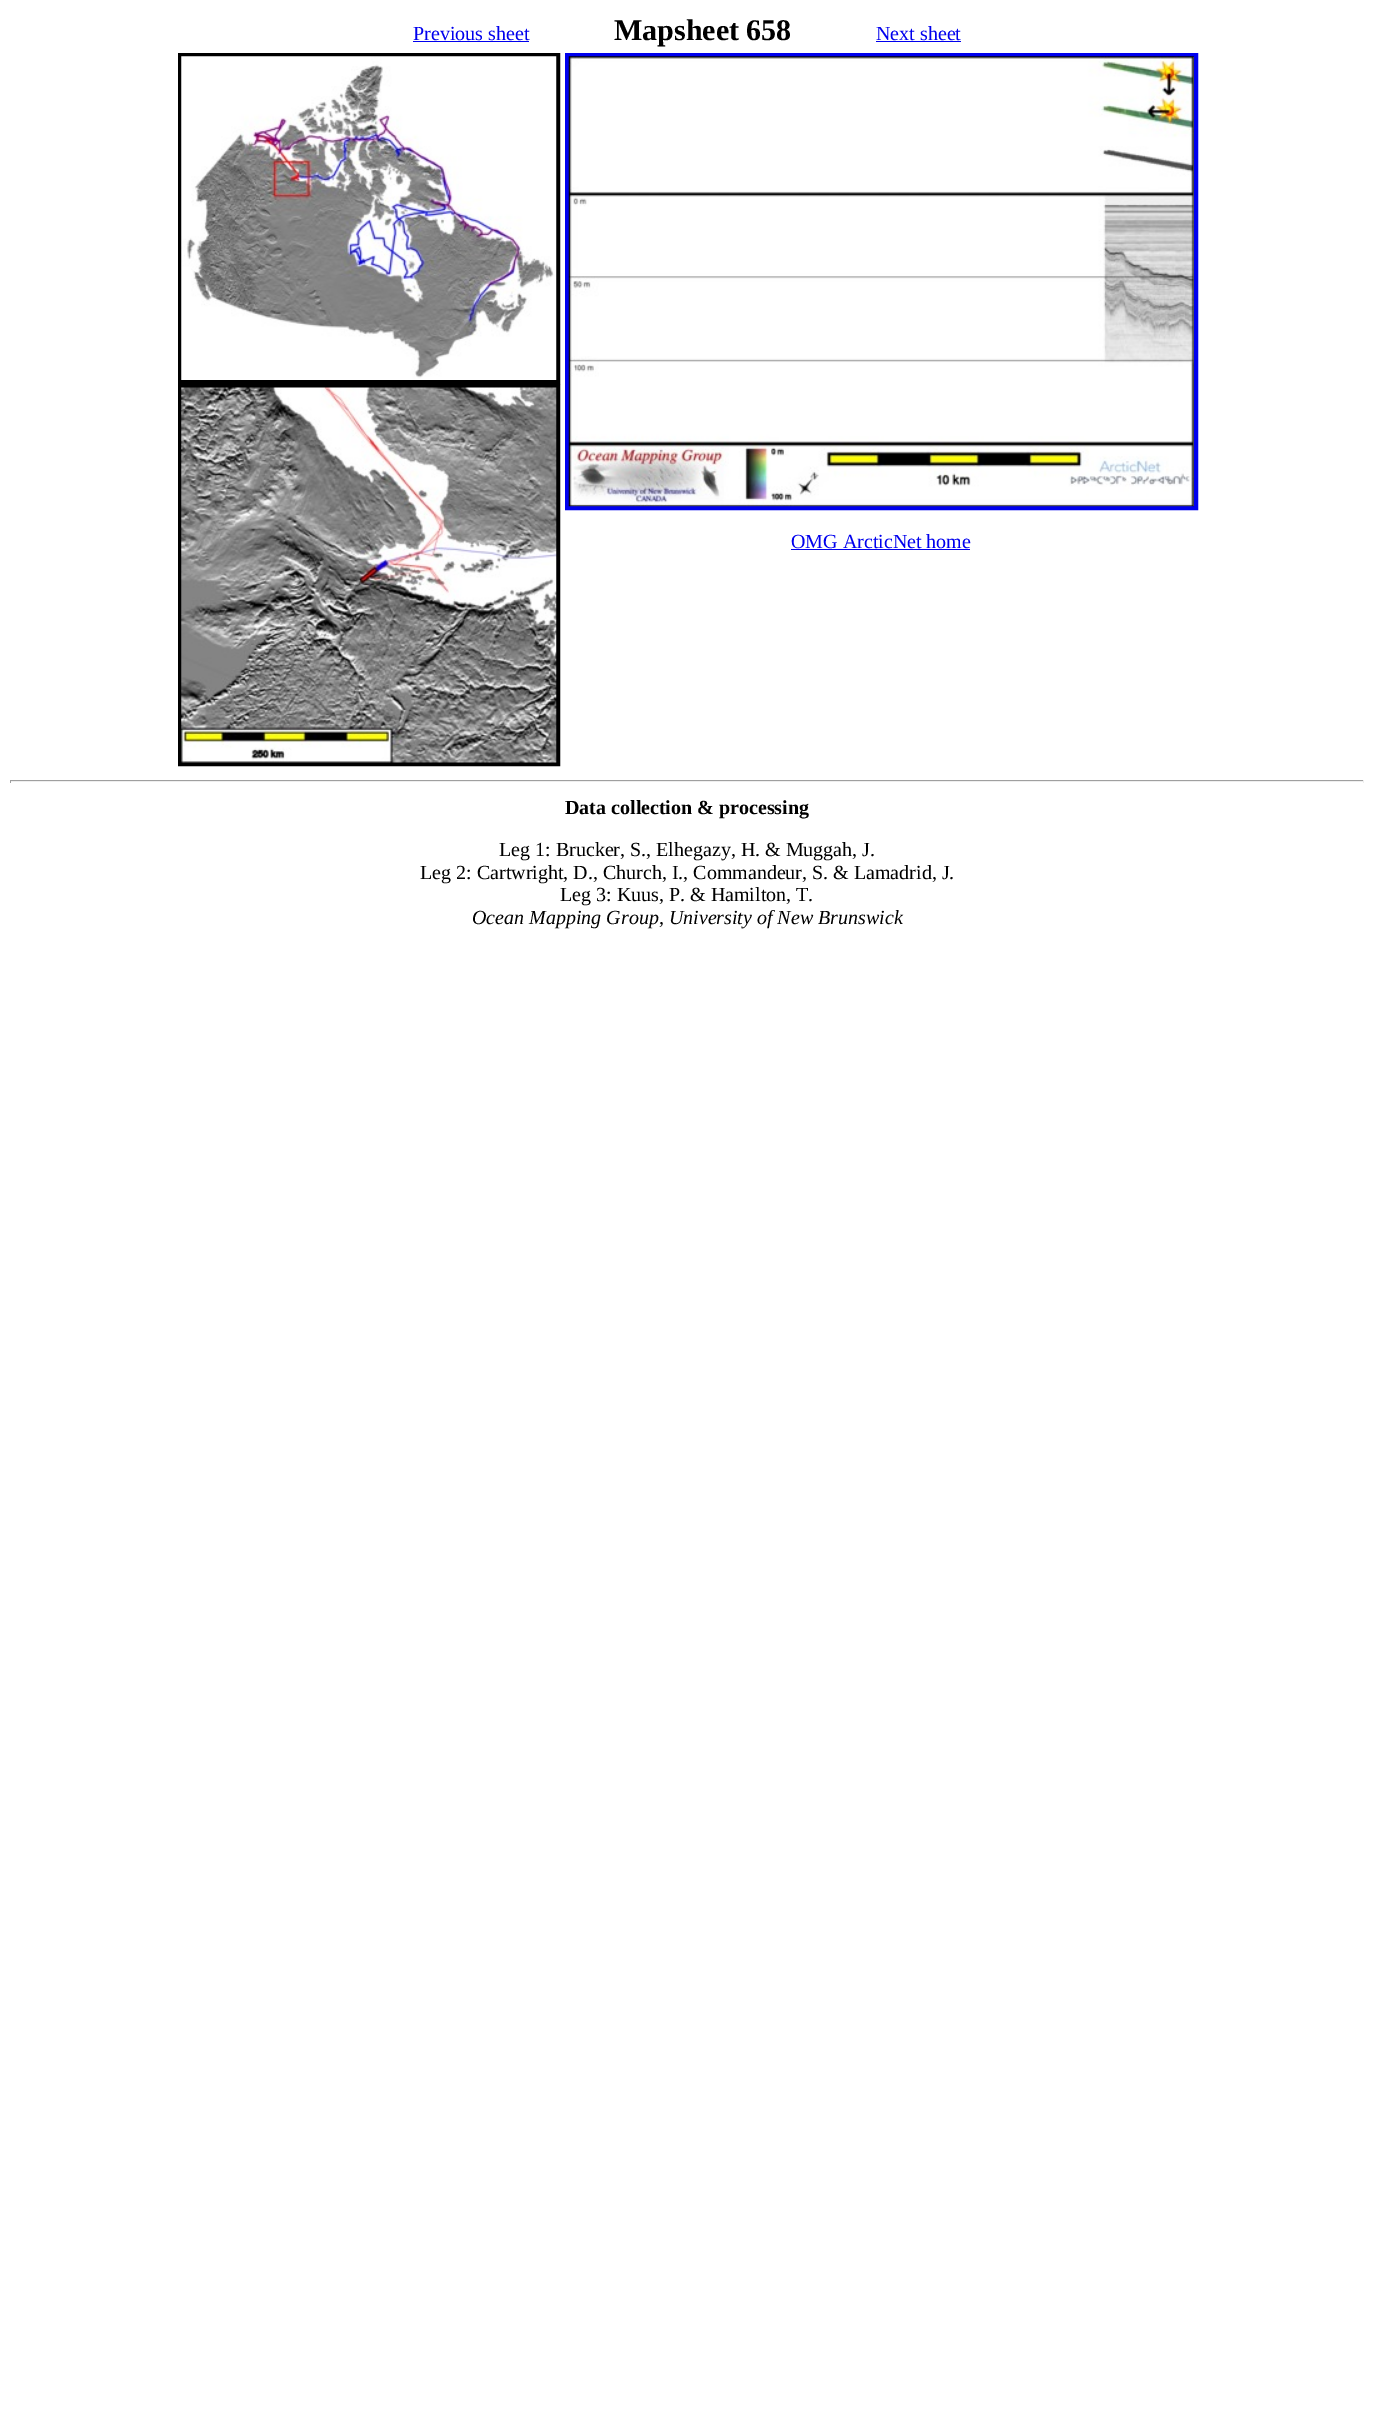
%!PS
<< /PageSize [1373 2419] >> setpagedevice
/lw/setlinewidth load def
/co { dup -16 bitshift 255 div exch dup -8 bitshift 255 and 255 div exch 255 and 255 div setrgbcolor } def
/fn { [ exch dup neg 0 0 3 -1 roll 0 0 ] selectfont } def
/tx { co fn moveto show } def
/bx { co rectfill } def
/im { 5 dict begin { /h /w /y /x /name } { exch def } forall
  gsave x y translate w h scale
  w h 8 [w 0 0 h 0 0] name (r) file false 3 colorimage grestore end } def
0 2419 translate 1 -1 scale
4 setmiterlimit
0 0 1373 2419 16#FFFFFF bx
413 41 116 1 16#0000EE bx
876 41 85 1 16#0000EE bx
16#000000 co
4 lw
180 55 378 327 rectstroke
(media/1.raw) 181 56 376 324 im
180 386 378 378 rectstroke
(media/2.raw) 181 387 376 376 im
16#0000EE co
567 55 629 453 rectstroke
(media/3.raw) 568 56 626 451 im
791 549 179 1 16#0000EE bx
10 780 1354 1 16#9F9F9F bx
1363 780 1 3 16#EEEEEE bx
10 781 1354 1 16#EEEEEE bx
10 780 1 3 16#9F9F9F bx
(Previous sheet) 413 40 /LiberationSerif-Regular 20 16#0000EE tx
(Mapsheet 658) 614 40 /LiberationSerif-Bold 30 16#000000 tx
(Next sheet) 876 40 /LiberationSerif-Regular 20 16#0000EE tx
(OMG ArcticNet home) 791 548 /LiberationSerif-Regular 20 16#0000EE tx
(Data collection & processing) 565 814 /LiberationSerif-Bold 20 16#000000 tx
(Leg 1: Brucker, S., Elhegazy, H. & Muggah, J.) 499 856 /LiberationSerif-Regular 20 16#000000 tx
(Leg 2: Cartwright, D., Church, I., Commandeur, S. & Lamadrid, J.) 420 879 /LiberationSerif-Regular 20 16#000000 tx
(Leg 3: Kuus, P. & Hamilton, T.) 560 901 /LiberationSerif-Regular 20 16#000000 tx
(Ocean Mapping Group, University of New Brunswick) 472 924 /LiberationSerif-Italic 20 16#000000 tx
showpage
